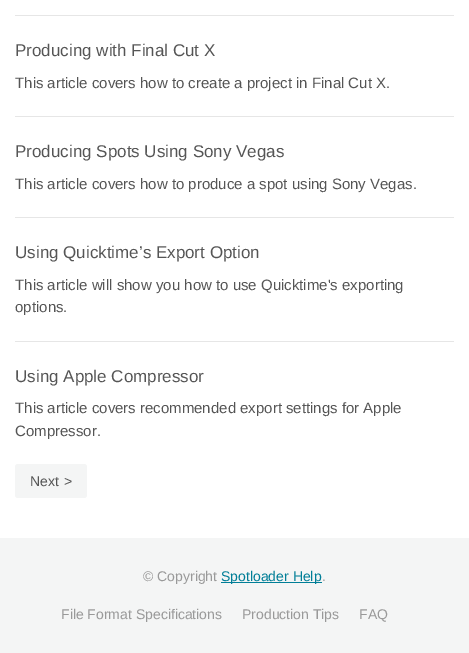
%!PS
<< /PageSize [469 653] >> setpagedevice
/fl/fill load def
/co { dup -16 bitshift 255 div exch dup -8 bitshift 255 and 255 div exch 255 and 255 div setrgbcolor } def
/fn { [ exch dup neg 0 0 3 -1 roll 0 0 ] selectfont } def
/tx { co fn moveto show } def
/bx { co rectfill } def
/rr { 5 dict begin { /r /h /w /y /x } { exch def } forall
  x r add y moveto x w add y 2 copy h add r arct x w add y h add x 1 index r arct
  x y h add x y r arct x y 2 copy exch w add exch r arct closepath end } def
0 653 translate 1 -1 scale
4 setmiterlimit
0 0 469 653 16#FFFFFF bx
15 15 439 1 16#E6E6E6 bx
15 116 439 1 16#E6E6E6 bx
15 217 439 1 16#E6E6E6 bx
15 341 439 1 16#E6E6E6 bx
16#F4F5F5 co
15 464 72 34 3 rr fl
0 538 469 115 16#F4F5F5 bx
221 582 101 1 16#007E97 bx
(Producing with Final Cut X) 15 56 /LiberationSans-Regular 17 16#555555 tx
(This article covers how to create a project in Final Cut X.) 15 88 /LiberationSans-Regular 15 16#555555 tx
(Producing Spots Using Sony Vegas) 15 157 /LiberationSans-Regular 17 16#555555 tx
(This article covers how to produce a spot using Sony Vegas.) 15 189 /LiberationSans-Regular 15 16#555555 tx
(Using Quicktime’s Export Option) 15 258 /LiberationSans-Regular 17 16#555555 tx
(This article will show you how to use Quicktime's exporting) 15 290 /LiberationSans-Regular 15 16#555555 tx
(options.) 15 312 /LiberationSans-Regular 15 16#555555 tx
(Using Apple Compressor) 15 382 /LiberationSans-Regular 17 16#555555 tx
(This article covers recommended export settings for Apple) 15 413 /LiberationSans-Regular 15 16#555555 tx
(Compressor.) 15 436 /LiberationSans-Regular 15 16#555555 tx
(Next) 30 486 /LiberationSans-Regular 14 16#555555 tx
(>) 64 486 /LiberationSans-Regular 14 16#555555 tx
(© Copyright) 143 581 /LiberationSans-Regular 14 16#999999 tx
(Spotloader Help) 221 581 /LiberationSans-Regular 14 16#007E97 tx
(.) 322 581 /LiberationSans-Regular 14 16#999999 tx
(File Format Specifications) 61 619 /LiberationSans-Regular 14 16#999999 tx
(Production Tips) 242 619 /LiberationSans-Regular 14 16#999999 tx
(FAQ) 359 619 /LiberationSans-Regular 14 16#999999 tx
showpage
